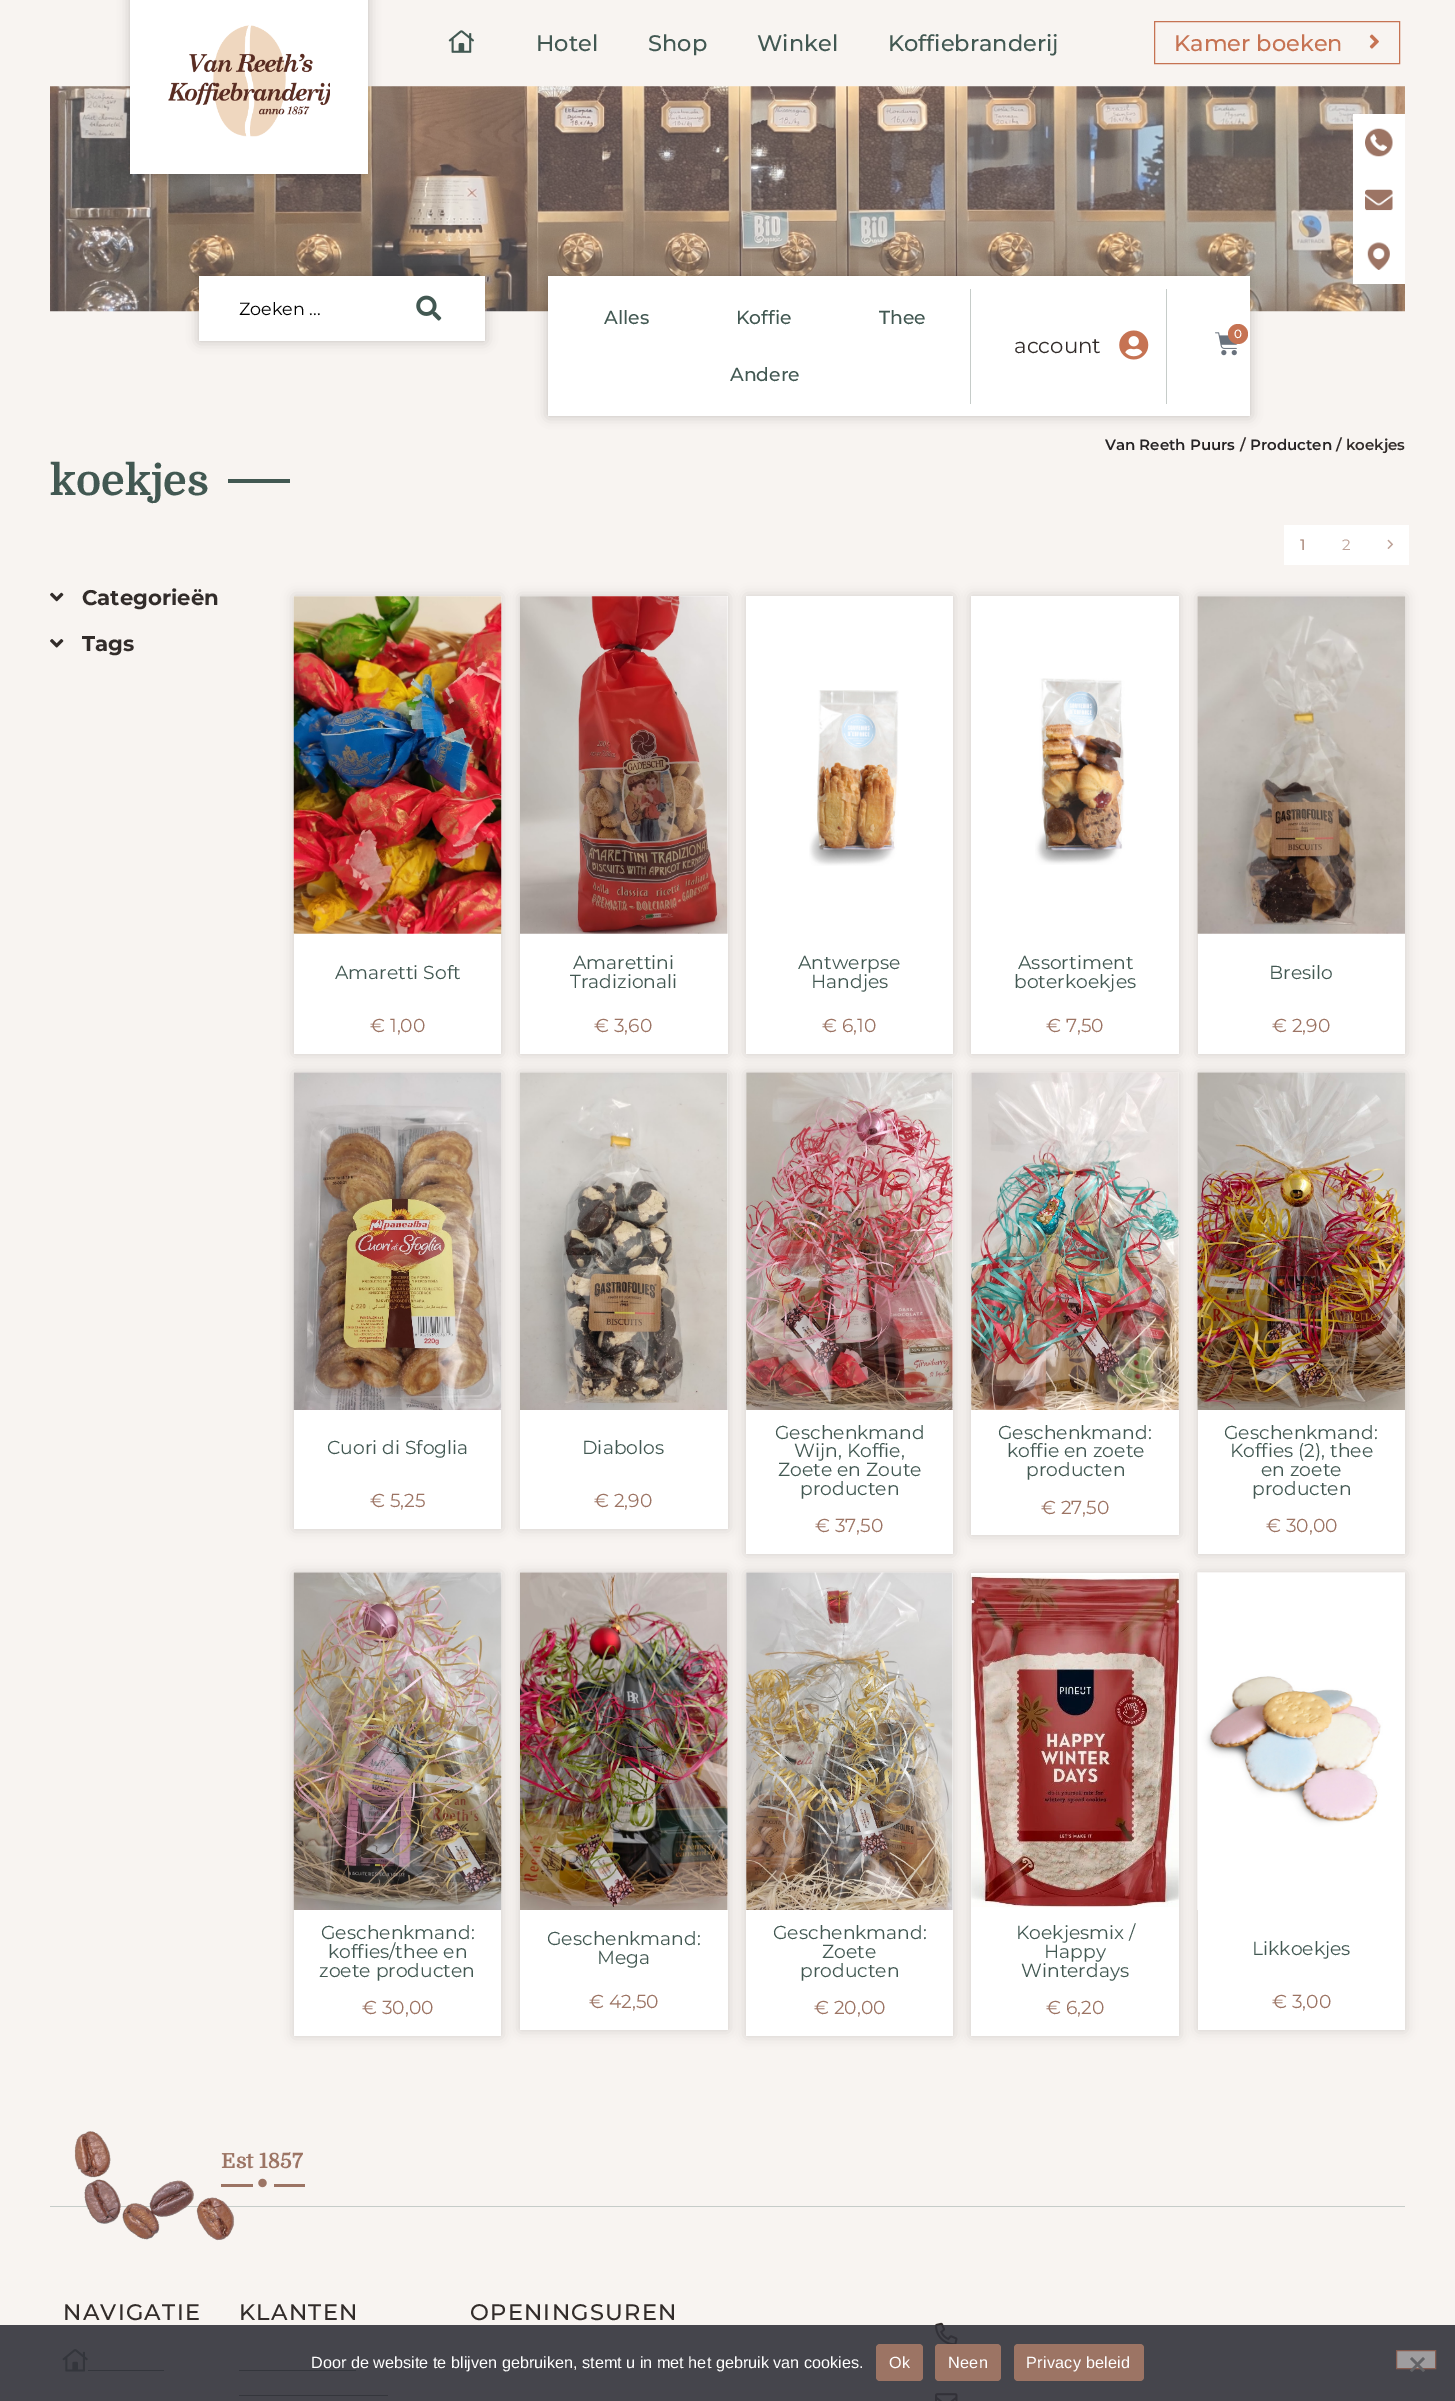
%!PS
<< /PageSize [1455 2401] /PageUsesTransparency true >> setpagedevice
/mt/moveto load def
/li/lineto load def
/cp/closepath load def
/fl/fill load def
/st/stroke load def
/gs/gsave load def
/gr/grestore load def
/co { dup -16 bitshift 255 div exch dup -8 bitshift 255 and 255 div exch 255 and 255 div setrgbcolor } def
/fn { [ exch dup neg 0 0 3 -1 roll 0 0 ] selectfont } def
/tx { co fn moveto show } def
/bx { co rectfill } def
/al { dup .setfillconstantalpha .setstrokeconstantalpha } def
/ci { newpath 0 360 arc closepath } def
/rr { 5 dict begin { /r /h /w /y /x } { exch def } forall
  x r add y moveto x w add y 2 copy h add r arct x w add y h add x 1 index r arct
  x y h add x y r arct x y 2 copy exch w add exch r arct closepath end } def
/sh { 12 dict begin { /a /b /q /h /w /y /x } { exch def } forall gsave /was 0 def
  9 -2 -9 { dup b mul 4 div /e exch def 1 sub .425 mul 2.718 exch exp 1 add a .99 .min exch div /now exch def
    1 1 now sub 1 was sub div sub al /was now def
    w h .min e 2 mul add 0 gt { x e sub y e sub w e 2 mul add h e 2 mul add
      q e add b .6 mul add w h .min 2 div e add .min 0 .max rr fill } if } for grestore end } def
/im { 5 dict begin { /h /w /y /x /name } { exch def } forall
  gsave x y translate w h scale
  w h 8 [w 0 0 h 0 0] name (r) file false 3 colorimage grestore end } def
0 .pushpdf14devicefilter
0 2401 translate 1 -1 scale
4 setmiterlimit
0 0 1455 2401 16#F8F4F1 bx
(media/4.raw) 50 86 1355 226 im
16#000000 co
130 -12 238 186 0 6 .22 sh
130 0 238 174 16#FFFFFF bx
(media/1.raw) 168 25 162 112 im
(media/2.raw) 448 30 26 23 im
16#C67353 co
1154.5 21.5 245 42 rectstroke
(media/3.raw) 1369 34 10 15 im
1353 114 52 170 16#FFFFFF bx
(media/5.raw) 1365 128 28 29 im
(media/6.raw) 1365 189 28 22 im
(media/7.raw) 1367 242 23 28 im
16#000000 co
199 276 286 65 0 6 .22 sh
199 276 286 65 16#FFFFFF bx
(media/8.raw) 416 295 26 26 im
16#000000 co
548 276 702 140 0 6 .22 sh
548 276 702 140 16#FFFFFF bx
970 289 1 115 16#C6CCC9 bx
(media/9.raw) 1215 332 23 24 im
16#C67353 co
1238 334 10 ci fl
1166 289 1 115 16#C6CCC9 bx
(media/10.raw) 1119 330 30 30 im
228 479 62 4 16#425852 bx
1284 525 125 40 16#FFFFFF bx
(media/11.raw) 1387 539 7 10 im
(media/12.raw) 50 592 14 10 im
(media/13.raw) 50 639 14 9 im
16#000000 co
294 596 207 458 0 6 .15 sh
294 596 207 458 16#FFFFFF bx
(media/14.raw) 293 596 209 338 im
16#000000 co
520 596 208 458 0 6 .15 sh
520 596 208 458 16#FFFFFF bx
(media/15.raw) 520 596 208 338 im
16#000000 co
746 596 207 458 0 6 .15 sh
746 596 207 458 16#FFFFFF bx
(media/16.raw) 809 690 90 176 im
16#000000 co
971 596 208 458 0 6 .15 sh
971 596 208 458 16#FFFFFF bx
(media/17.raw) 1035 678 90 187 im
16#000000 co
1198 596 207 458 0 6 .15 sh
1198 596 207 458 16#FFFFFF bx
(media/18.raw) 1197 596 208 338 im
16#000000 co
294 1073 207 456 0 6 .15 sh
294 1410 207 119 16#FFFFFF bx
(media/19.raw) 293 1072 209 338 im
16#000000 co
520 1073 208 456 0 6 .15 sh
520 1073 208 456 16#FFFFFF bx
(media/20.raw) 520 1072 208 338 im
16#000000 co
746 1073 207 481 0 6 .15 sh
746 1073 207 481 16#FFFFFF bx
(media/21.raw) 746 1072 207 338 im
16#000000 co
971 1073 208 462 0 6 .15 sh
971 1073 208 462 16#FFFFFF bx
(media/22.raw) 971 1072 208 338 im
16#000000 co
1198 1073 207 481 0 6 .15 sh
1198 1410 207 144 16#FFFFFF bx
(media/23.raw) 1197 1072 208 338 im
16#000000 co
294 1573 207 463 0 6 .15 sh
294 1910 207 126 16#FFFFFF bx
(media/24.raw) 293 1572 209 338 im
16#000000 co
520 1573 208 457 0 6 .15 sh
520 1573 208 457 16#FFFFFF bx
(media/25.raw) 520 1572 208 338 im
16#000000 co
746 1573 207 463 0 6 .15 sh
746 1573 207 463 16#FFFFFF bx
(media/26.raw) 746 1572 207 338 im
16#000000 co
971 1573 208 463 0 6 .15 sh
971 1573 208 463 16#FFFFFF bx
(media/27.raw) 971 1575 208 333 im
16#000000 co
1198 1573 207 457 0 6 .15 sh
1198 1910 207 120 16#FFFFFF bx
(media/28.raw) 1197 1572 208 338 im
221 2184 32 3 16#9C7464 bx
(media/30.raw) 258 2178 9 10 im
274 2184 31 3 16#9C7464 bx
50 2206 1355 1 16#C6CCC9 bx
(media/31.raw) 62 2349 26 23 im
88 2370 76 1 16#425852 bx
239 2370 117 1 16#425852 bx
239 2395 149 1 16#425852 bx
(media/32.raw) 935 2322 23 22 im
(media/33.raw) 935 2393 23 8 im
0.9 al
0 2325 1455 76 16#32323A bx
1 al
16#9C7464 co
876 2344 47 37 4 rr fl
935 2344 66 37 4 rr fl
1014 2344 130 37 4 rr fl
16#9F9D9F co
1396.5 2350.5 mt 1435.5 2350.5 li 1435.5 2368.5 li 1396.5 2368.5 li cp gs fl gr
16#865C50 co
st
16#636366 co
1423 2357 mt 1425 2359 li 1412 2372 li 1410 2370.5 li cp fl
1410 2359 mt 1412 2357 li 1425 2370.5 li 1423 2372 li cp fl
(Hotel) 536 51 /Montserrat-Medium 22.5 16#425852 tx
(Shop) 648 51 /Montserrat-Medium 22.5 16#425852 tx
(Winkel) 757 51 /Montserrat-Medium 22.5 16#425852 tx
(Koffiebranderij) 888 51 /Montserrat-Medium 22.5 16#425852 tx
(Kamer boeken) 1174 51 /Montserrat-Medium 22.5 16#C67353 tx
(Zoeken ...) 239 315 /Montserrat-Regular 17.5 16#000000 tx
(Alles) 604 324 /Montserrat-Medium 18.75 16#425852 tx
(Koffie) 736 324 /Montserrat-Medium 18.75 16#425852 tx
(Thee) 879 324 /Montserrat-Medium 18.75 16#425852 tx
(Andere) 730 381 /Montserrat-Medium 18.75 16#425852 tx
(0) 1234 338 /Montserrat-Medium 12 16#FFFFFF tx
(account) 1014 353 /Montserrat-Regular 21.25 16#322C2A tx
(Van Reeth Puurs) 1105 450 /Montserrat-SemiBold 15 16#262324 tx
(/) 1240 450 /Montserrat-SemiBold 15 16#322C2A tx
(Producten) 1250 450 /Montserrat-SemiBold 15 16#262324 tx
(/ koekjes) 1336 450 /Montserrat-SemiBold 15 16#322C2A tx
(koekjes) 50 495 /Domine-Bold 42.5 16#425852 tx
(1) 1300 550 /Montserrat-Regular 15 16#9C7464 tx
(2) 1342 550 /Montserrat-Regular 15 16#BDA297 tx
(Categorieën) 82 605 /Montserrat-Bold 21.25 16#322C2A tx
(Tags) 82 651 /Montserrat-Bold 21.25 16#322C2A tx
(Amaretti Soft) 335 979 /Montserrat-Regular 18.75 16#425852 tx
(€ 1,00) 370 1032 /Montserrat-Regular 18.75 16#9C7464 tx
(Amarettini) 573 969 /Montserrat-Regular 18.75 16#425852 tx
(Tradizionali) 570 988 /Montserrat-Regular 18.75 16#425852 tx
(€ 3,60) 594 1032 /Montserrat-Regular 18.75 16#9C7464 tx
(Antwerpse) 798 969 /Montserrat-Regular 18.75 16#425852 tx
(Handjes) 811 988 /Montserrat-Regular 18.75 16#425852 tx
(€ 6,10) 822 1032 /Montserrat-Regular 18.75 16#9C7464 tx
(Assortiment) 1018 969 /Montserrat-Regular 18.75 16#425852 tx
(boterkoekjes) 1014 988 /Montserrat-Regular 18.75 16#425852 tx
(€ 7,50) 1046 1032 /Montserrat-Regular 18.75 16#9C7464 tx
(Bresilo) 1269 979 /Montserrat-Regular 18.75 16#425852 tx
(€ 2,90) 1272 1032 /Montserrat-Regular 18.75 16#9C7464 tx
(Cuori di Sfoglia) 327 1454 /Montserrat-Regular 18.75 16#425852 tx
(€ 5,25) 370 1507 /Montserrat-Regular 18.75 16#9C7464 tx
(Diabolos) 582 1454 /Montserrat-Regular 18.75 16#425852 tx
(€ 2,90) 594 1507 /Montserrat-Regular 18.75 16#9C7464 tx
(Geschenkmand) 775 1439 /Montserrat-Regular 18.75 16#425852 tx
(Wijn, Koffie,) 794 1457 /Montserrat-Regular 18.75 16#425852 tx
(Zoete en Zoute) 778 1476 /Montserrat-Regular 18.75 16#425852 tx
(producten) 800 1495 /Montserrat-Regular 18.75 16#425852 tx
(€ 37,50) 815 1532 /Montserrat-Regular 18.75 16#9C7464 tx
(Geschenkmand:) 998 1439 /Montserrat-Regular 18.75 16#425852 tx
(koffie en zoete) 1007 1457 /Montserrat-Regular 18.75 16#425852 tx
(producten) 1026 1476 /Montserrat-Regular 18.75 16#425852 tx
(€ 27,50) 1041 1514 /Montserrat-Regular 18.75 16#9C7464 tx
(Geschenkmand:) 1224 1439 /Montserrat-Regular 18.75 16#425852 tx
(Koffies \(2\), thee) 1230 1457 /Montserrat-Regular 18.75 16#425852 tx
(en zoete) 1261 1476 /Montserrat-Regular 18.75 16#425852 tx
(producten) 1252 1495 /Montserrat-Regular 18.75 16#425852 tx
(€ 30,00) 1266 1532 /Montserrat-Regular 18.75 16#9C7464 tx
(Geschenkmand:) 321 1939 /Montserrat-Regular 18.75 16#425852 tx
(koffies/thee en) 328 1958 /Montserrat-Regular 18.75 16#425852 tx
(zoete producten) 319 1977 /Montserrat-Regular 18.75 16#425852 tx
(€ 30,00) 362 2014 /Montserrat-Regular 18.75 16#9C7464 tx
(Geschenkmand:) 547 1945 /Montserrat-Regular 18.75 16#425852 tx
(Mega) 597 1964 /Montserrat-Regular 18.75 16#425852 tx
(€ 42,50) 589 2008 /Montserrat-Regular 18.75 16#9C7464 tx
(Geschenkmand:) 773 1939 /Montserrat-Regular 18.75 16#425852 tx
(Zoete) 822 1958 /Montserrat-Regular 18.75 16#425852 tx
(producten) 800 1977 /Montserrat-Regular 18.75 16#425852 tx
(€ 20,00) 814 2014 /Montserrat-Regular 18.75 16#9C7464 tx
(Koekjesmix /) 1016 1939 /Montserrat-Regular 18.75 16#425852 tx
(Happy) 1044 1958 /Montserrat-Regular 18.75 16#425852 tx
(Winterdays) 1021 1977 /Montserrat-Regular 18.75 16#425852 tx
(€ 6,20) 1046 2014 /Montserrat-Regular 18.75 16#9C7464 tx
(Likkoekjes) 1252 1955 /Montserrat-Regular 18.75 16#425852 tx
(€ 3,00) 1272 2008 /Montserrat-Regular 18.75 16#9C7464 tx
(Est 1857) 221 2168 /Domine-Bold 21 16#9C7464 tx
(media/29.raw) 74 2131 161 110 im
/Montserrat-Medium 22.5 fn
16#322C2A co
63 2320 mt 1.25 0 (NAVIGATIE) ashow
239 2320 mt 1.25 0 (KLANTEN) ashow
470 2320 mt 1.25 0 (OPENINGSUREN) ashow
(Door de website te blijven gebruiken, stemt u in met het gebruik van cookies.) 311 2368 /LiberationSans-Regular 16.25 16#FFFFFF tx
889 2368 mt .25 0 (Ok) ashow
948 2368 mt .25 0 (Neen) ashow
1026 2368 mt .25 0 (Privacy beleid) ashow
.poppdf14devicefilter showpage
